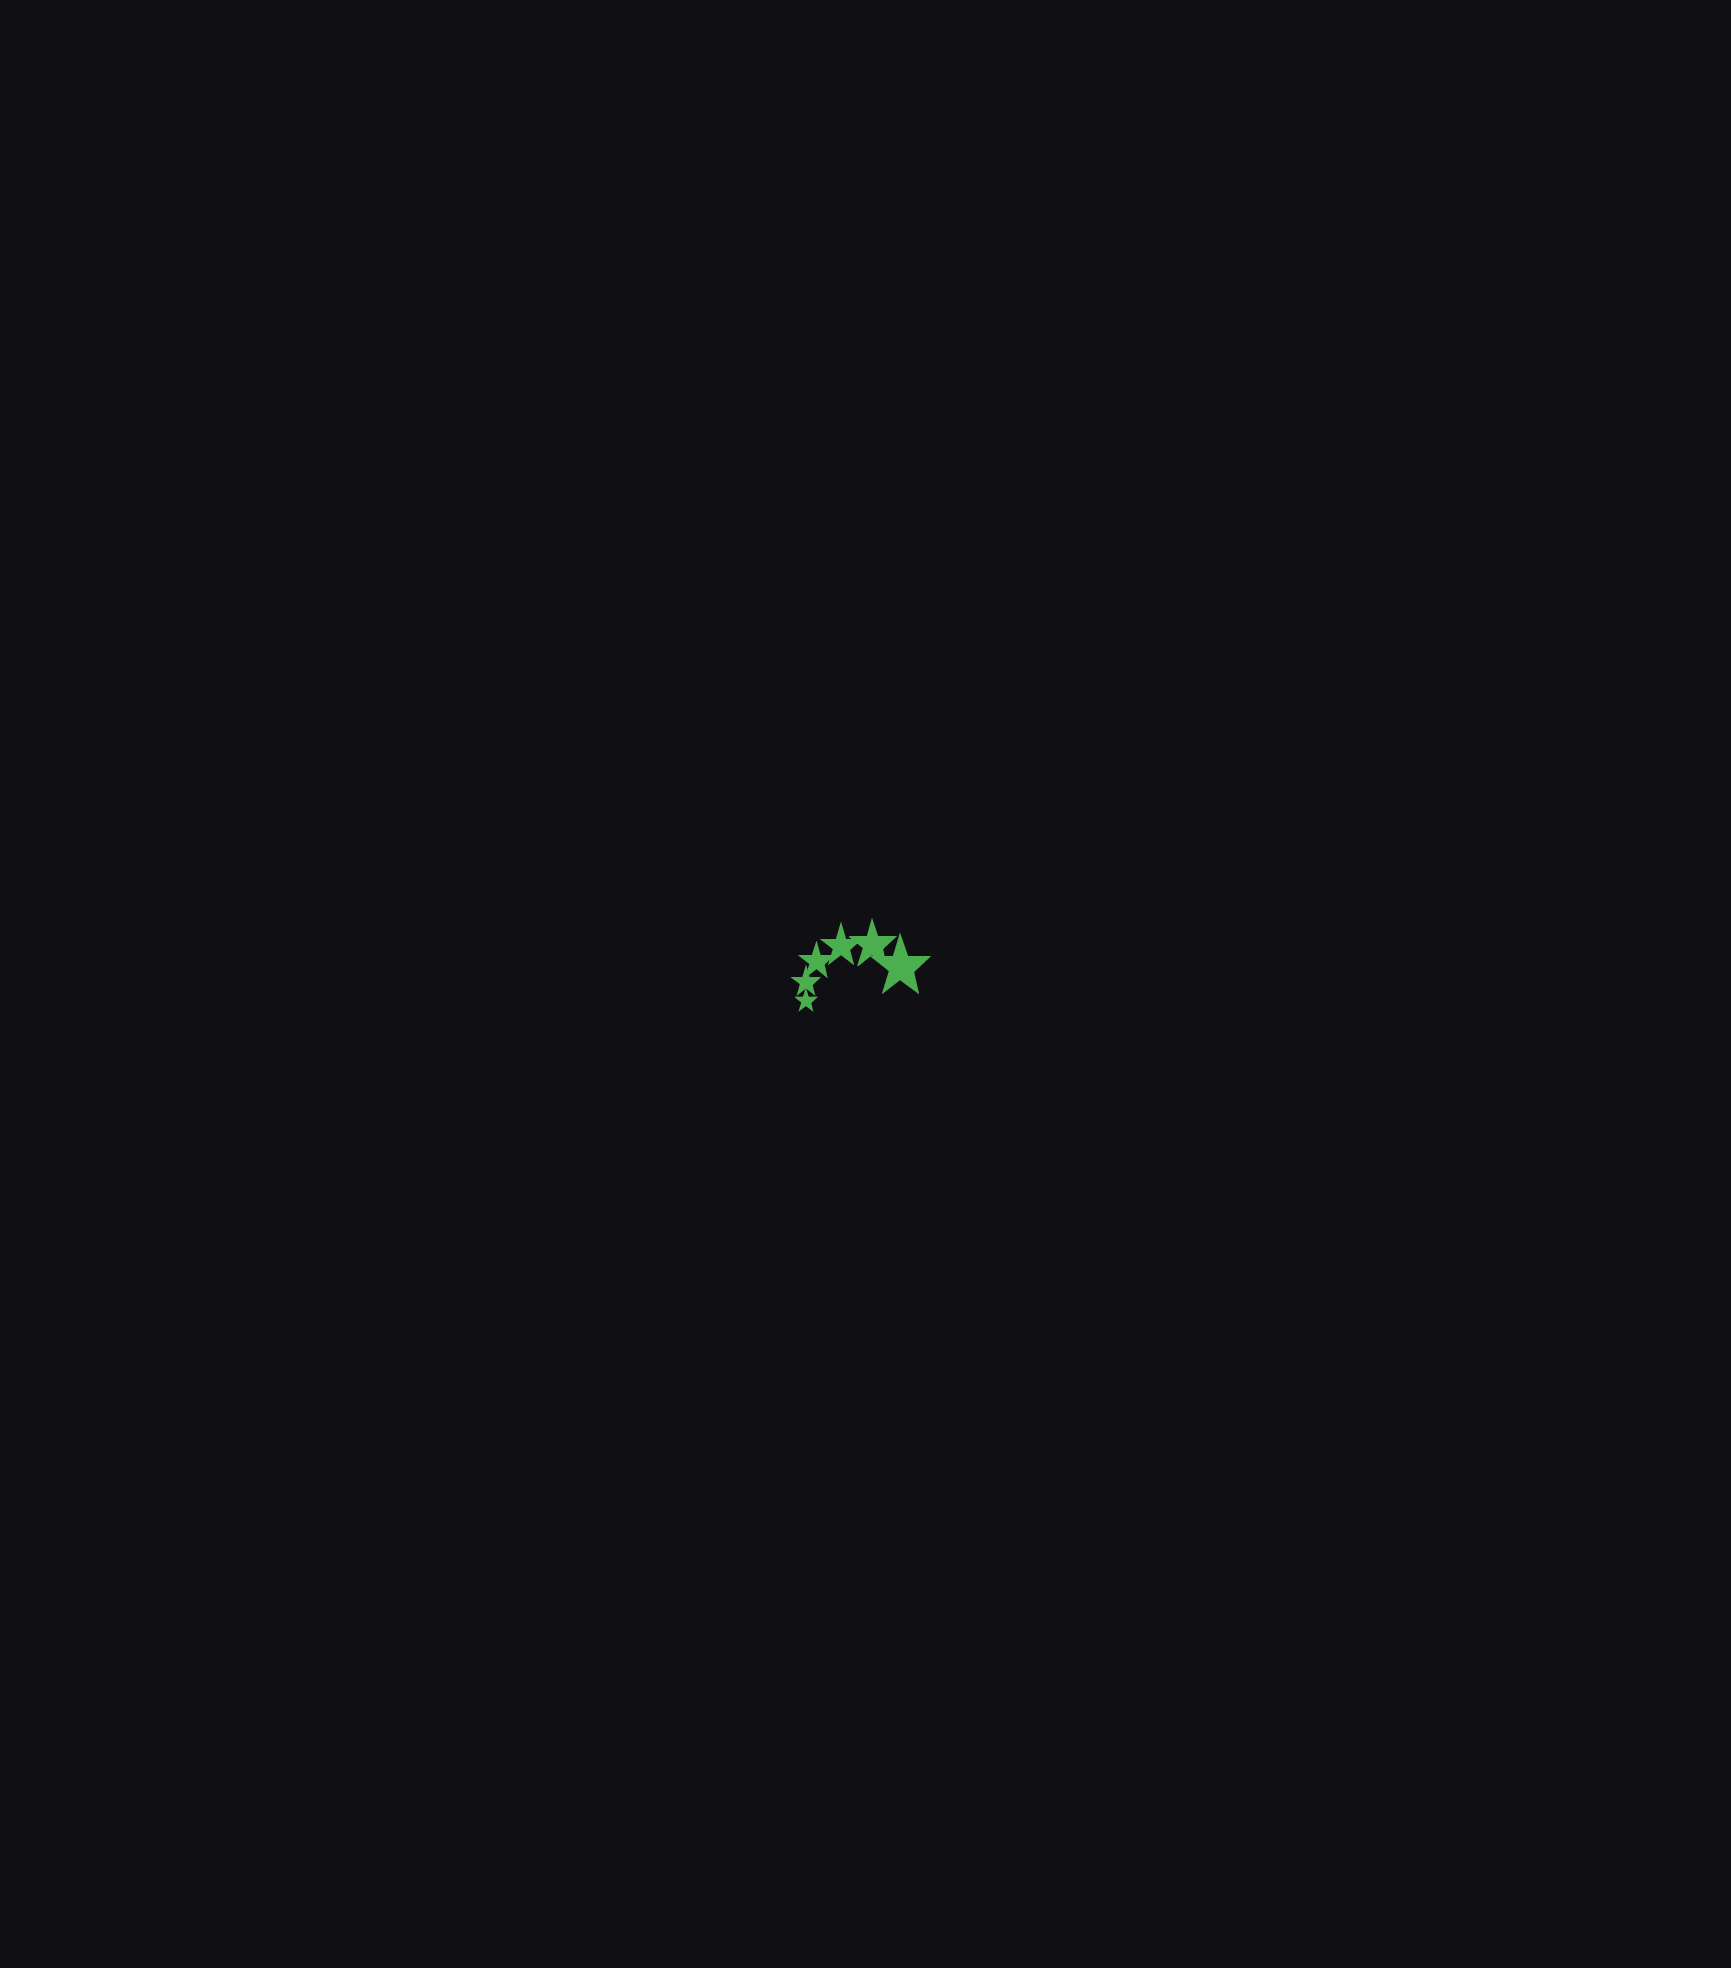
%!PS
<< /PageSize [1731 1968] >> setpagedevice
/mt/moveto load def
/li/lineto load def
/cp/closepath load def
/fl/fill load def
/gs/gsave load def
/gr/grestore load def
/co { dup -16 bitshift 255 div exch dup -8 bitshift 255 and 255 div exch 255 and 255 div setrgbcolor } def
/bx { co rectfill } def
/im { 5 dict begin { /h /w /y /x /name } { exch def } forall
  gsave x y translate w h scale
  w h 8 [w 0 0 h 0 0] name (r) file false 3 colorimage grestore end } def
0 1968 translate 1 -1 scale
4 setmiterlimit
0 0 1731 1968 16#101014 bx
16#4CAF4F co
900 933 mt 893 956 li 870 956 li 889 971 li 882 994 li 900 980 li 919 994 li 914 972 li 931 956 li 908 956 li cp fl
gs
849 917 49 49 rectclip
872 918 mt 867 936 li 848 936 li 863 948 li 857 967 li 872 955 li 887 967 li 883 949 li 897 936 li 878 936 li cp fl
gr
841 922 mt 836 939 li 820 939 li 833 949 li 828 965 li 841 955 li 854 965 li 850 950 li 862 939 li 846 939 li cp fl
816.5 941 mt 812 955 li 798 955 li 809.5 964 li 805 978 li 816.5 969 li 827.5 978 li 824.5 964.5 li 834.5 955 li 820.5 955 li cp fl
806 965 mt 802.5 977 li 790.5 977 li 800 984 li 796.5 996 li 806 988.5 li 815.5 996 li 812.5 985 li 821 977 li 809.5 977 li cp fl
(media/1.raw) 795 988 23 24 im
showpage
